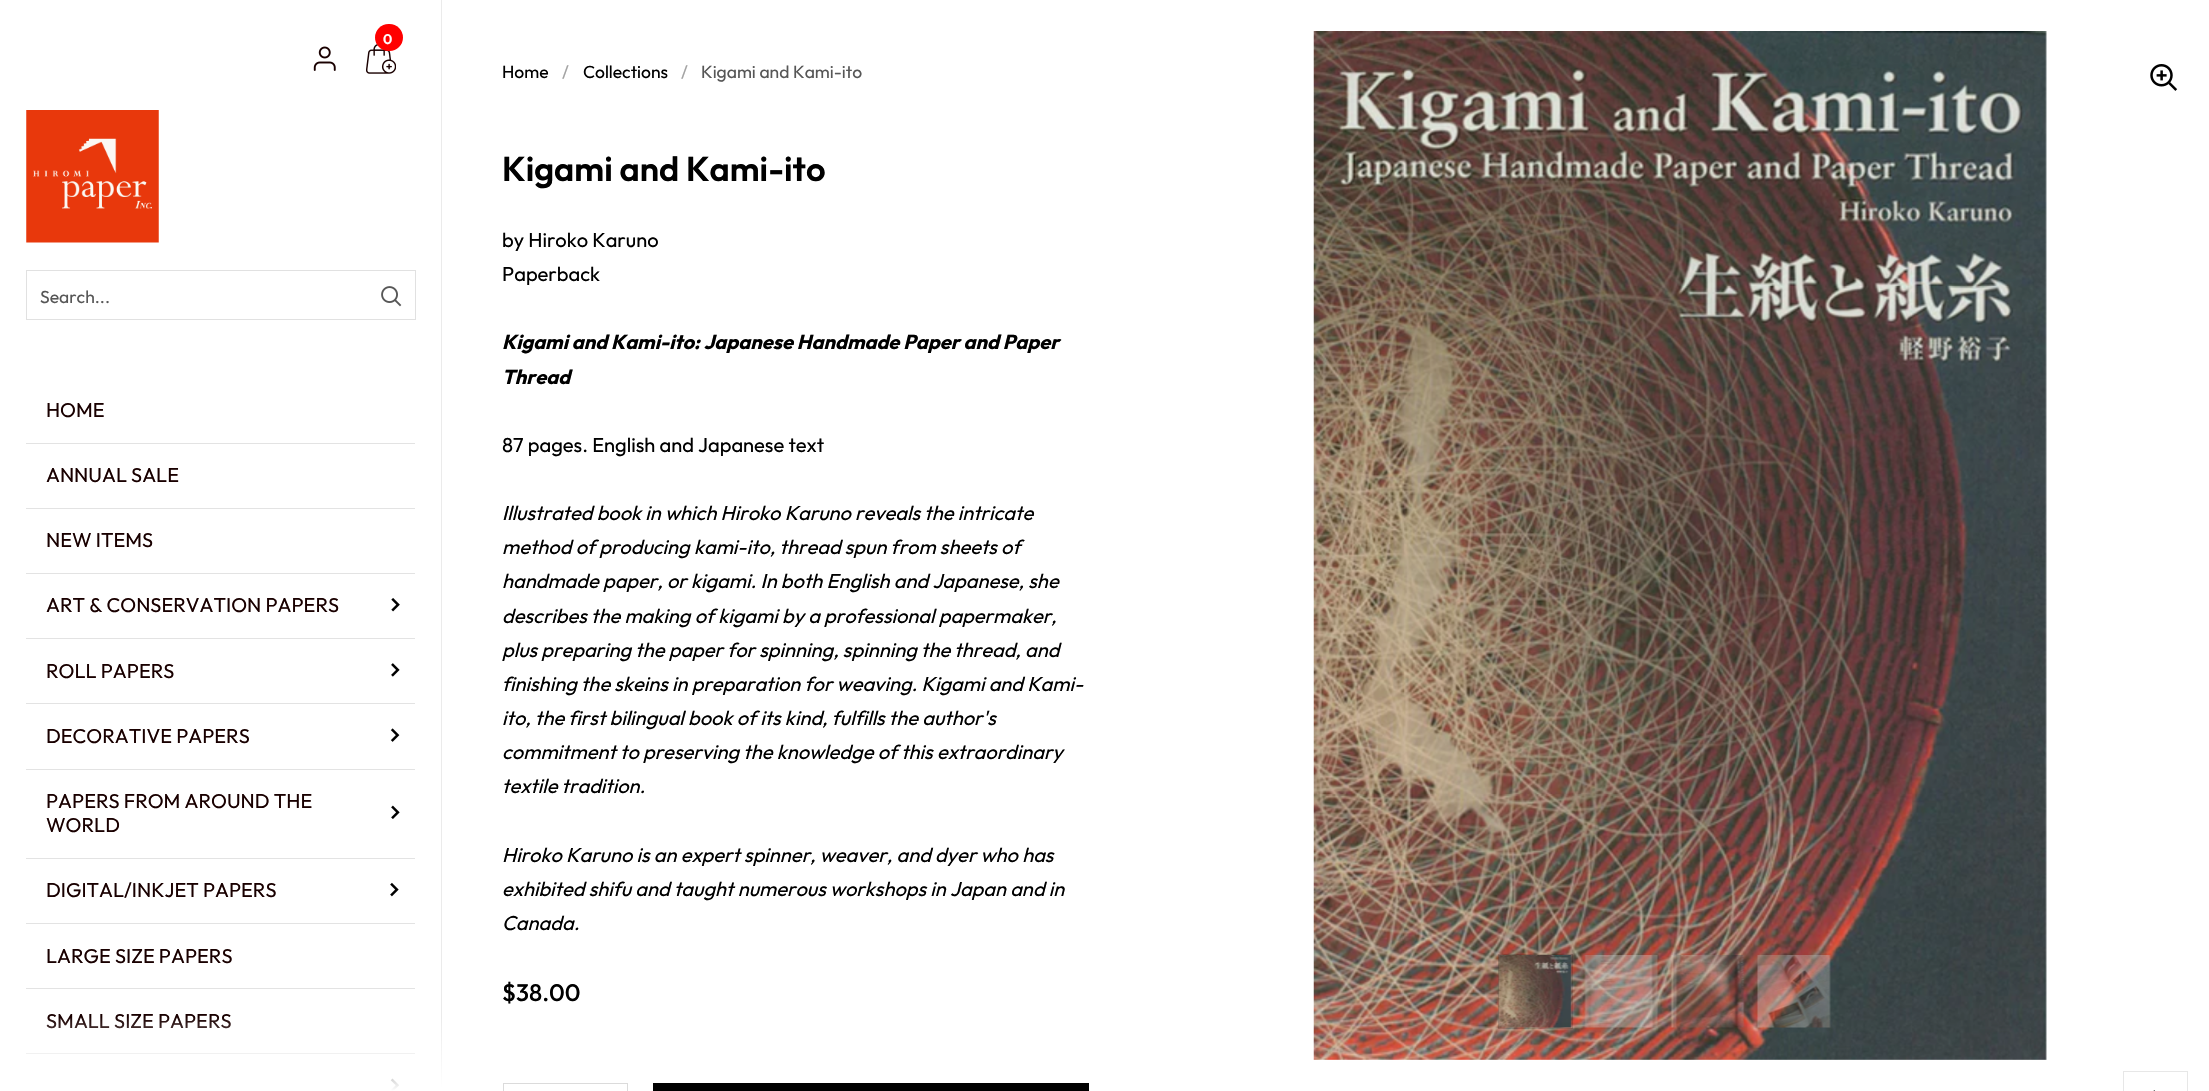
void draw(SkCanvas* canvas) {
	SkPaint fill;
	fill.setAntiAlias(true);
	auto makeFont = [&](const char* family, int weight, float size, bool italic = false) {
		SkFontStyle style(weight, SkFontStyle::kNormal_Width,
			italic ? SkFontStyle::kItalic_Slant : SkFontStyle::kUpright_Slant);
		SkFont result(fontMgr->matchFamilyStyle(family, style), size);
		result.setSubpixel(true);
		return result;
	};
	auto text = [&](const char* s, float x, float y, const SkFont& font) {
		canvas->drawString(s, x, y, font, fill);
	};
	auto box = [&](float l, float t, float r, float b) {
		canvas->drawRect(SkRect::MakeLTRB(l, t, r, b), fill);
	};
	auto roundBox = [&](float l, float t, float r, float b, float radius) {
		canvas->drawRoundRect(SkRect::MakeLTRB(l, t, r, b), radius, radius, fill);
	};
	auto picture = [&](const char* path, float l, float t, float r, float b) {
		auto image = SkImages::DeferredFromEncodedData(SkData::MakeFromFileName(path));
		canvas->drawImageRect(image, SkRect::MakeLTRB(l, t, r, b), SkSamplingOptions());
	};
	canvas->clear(0xFFFFFFFF);
	fill.setColor(0xFFEBEBEB);
	box(441, 0, 442, 1091);
	picture("image0.png", 366, 44, 396, 74);
	fill.setColor(0xFFFF0000);
	roundBox(375, 24, 403, 51, 13.5f);
	picture("image1.png", 313, 46, 336, 71);
	picture("image2.png", 26, 110, 159, 243);
	fill.setStyle(SkPaint::kStroke_Style);
	fill.setStrokeWidth(1);
	fill.setColor(0xFFE1E1E1);
	canvas->drawRect(SkRect::MakeLTRB(26.5f, 270.5f, 415.5f, 319.5f), fill);
	picture("image3.png", 381, 286, 402, 307);
	fill.setStyle(SkPaint::kFill_Style);
	fill.setColor(0xFFE3E3E3);
	box(26, 443, 415, 444);
	box(26, 508, 415, 509);
	box(26, 573, 415, 574);
	box(26, 638, 415, 639);
	picture("image4.png", 391, 598, 400, 612);
	box(26, 703, 415, 704);
	picture("image5.png", 391, 663, 400, 677);
	box(26, 769, 415, 770);
	picture("image6.png", 390, 728, 400, 742);
	box(26, 858, 415, 859);
	picture("image7.png", 391, 805, 400, 819);
	box(26, 923, 415, 924);
	picture("image8.png", 390, 882, 399, 897);
	box(26, 988, 415, 989);
	box(26, 1053, 415, 1054);
	picture("image9.png", 390, 1078, 400, 1091);
	fill.setStyle(SkPaint::kStroke_Style);
	fill.setColor(0xFFDBDBDB);
	canvas->drawRect(SkRect::MakeLTRB(503.5f, 1083.5f, 627.5f, 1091.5f), fill);
	fill.setStyle(SkPaint::kFill_Style);
	fill.setColor(0xFF000000);
	box(653, 1083, 1089, 1091);
	picture("image10.png", 1313, 31, 2047, 1060);
	picture("image11.png", 2150, 64, 2178, 91);
	fill.setStyle(SkPaint::kStroke_Style);
	fill.setColor(0x29000000);
	canvas->drawRect(SkRect::MakeLTRB(1498.5f, 954.5f, 1572.5f, 1028.5f), fill);
	fill.setStyle(SkPaint::kFill_Style);
	fill.setColor(0x08000000);
	box(1499, 955, 1571, 1028);
	picture("image12.png", 1498, 955, 1572, 1028);
	picture("image13.png", 1584, 955, 1658, 1028);
	picture("image14.png", 1670, 955, 1745, 1028);
	picture("image15.png", 1757, 955, 1831, 1028);
	fill.setStyle(SkPaint::kStroke_Style);
	fill.setColor(0xFFE7E7E7);
	canvas->drawRect(SkRect::MakeLTRB(2123.5f, 1071.5f, 2187.5f, 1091.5f), fill);
	picture("image16.png", 2153, 1090, 2155, 1091);
	auto font1 = makeFont("Outfit", 600, 14);
	fill.setStyle(SkPaint::kFill_Style);
	fill.setColor(0xFFFFFFFF);
	text("0", 383, 44, font1);
	auto font2 = makeFont("Outfit", 400, 17.5f);
	fill.setColor(0xFF575757);
	text("Search...", 40, 303, font2);
	auto font3 = makeFont("Outfit", 400, 20);
	fill.setColor(0xFF190000);
	text("HOME", 46, 417, font3);
	text("ANNUAL SALE", 46, 482, font3);
	text("NEW ITEMS", 46, 547, font3);
	text("ART & CONSERVATION PAPERS", 46, 612, font3);
	text("ROLL PAPERS", 46, 678, font3);
	text("DECORATIVE PAPERS", 46, 743, font3);
	text("PAPERS FROM AROUND THE", 46, 808, font3);
	text("WORLD", 46, 832, font3);
	text("DIGITAL/INKJET PAPERS", 46, 897, font3);
	text("LARGE SIZE PAPERS", 46, 963, font3);
	text("SMALL SIZE PAPERS", 46, 1028, font3);
	{
		const SkColor colors[] = {0xFFFFFFFF, 0x00FFFFFF};
		const float stops[] = {0, 1};
		const SkPoint ends[] = {{221, 1091}, {221, 1016}};
		fill.setShader(SkGradientShader::MakeLinear(ends, colors, stops, 2, SkTileMode::kClamp));
		fill.setAlpha(255);
	}
	box(26, 1018, 442, 1091);
	fill.setShader(nullptr);
	fill.setColor(0xFF000000);
	text("Home", 502, 78, font2);
	fill.setColor(0xFFA3A3A3);
	text("/", 562, 78, font2);
	fill.setColor(0xFF000000);
	text("Collections", 583, 78, font2);
	fill.setColor(0xFFA3A3A3);
	text("/", 681, 78, font2);
	fill.setColor(0xFF575757);
	text("Kigami and Kami-ito", 701, 78, font2);
	auto font4 = makeFont("Outfit", 600, 34.4f);
	fill.setColor(0xFF000000);
	text("Kigami and Kami-ito", 502, 181, font4);
	auto font5 = makeFont("Outfit", 400, 20.1f);
	text("by Hiroko Karuno", 502, 247, font5);
	text("Paperback", 502, 281, font5);
	auto font6 = makeFont("Outfit", 700, 20.1f, true);
	text("Kigami and Kami-ito: Japanese Handmade Paper and Paper", 502, 349, font6);
	text("Thread", 502, 384, font6);
	text("87 pages. English and Japanese text", 502, 452, font5);
	auto font7 = makeFont("Outfit", 400, 20.1f, true);
	text("Illustrated book in which Hiroko Karuno reveals the intricate", 502, 520, font7);
	text("method of producing kami-ito, thread spun from sheets of", 502, 554, font7);
	text("handmade paper, or kigami. In both English and Japanese, she", 502, 588, font7);
	text("describes the making of kigami by a professional papermaker,", 502, 623, font7);
	text("plus preparing the paper for spinning, spinning the thread, and", 502, 657, font7);
	text("finishing the skeins in preparation for weaving. Kigami and Kami-", 502, 691, font7);
	text("ito, the first bilingual book of its kind, fulfills the author's", 502, 725, font7);
	text("commitment to preserving the knowledge of this extraordinary", 502, 759, font7);
	text("textile tradition.", 502, 793, font7);
	text("Hiroko Karuno is an expert spinner, weaver, and dyer who has", 502, 862, font7);
	text("exhibited shifu and taught numerous workshops in Japan and in", 502, 896, font7);
	text("Canada.", 502, 930, font7);
	auto font8 = makeFont("Outfit", 500, 24);
	text("$38.00", 502, 1001, font8);
}
